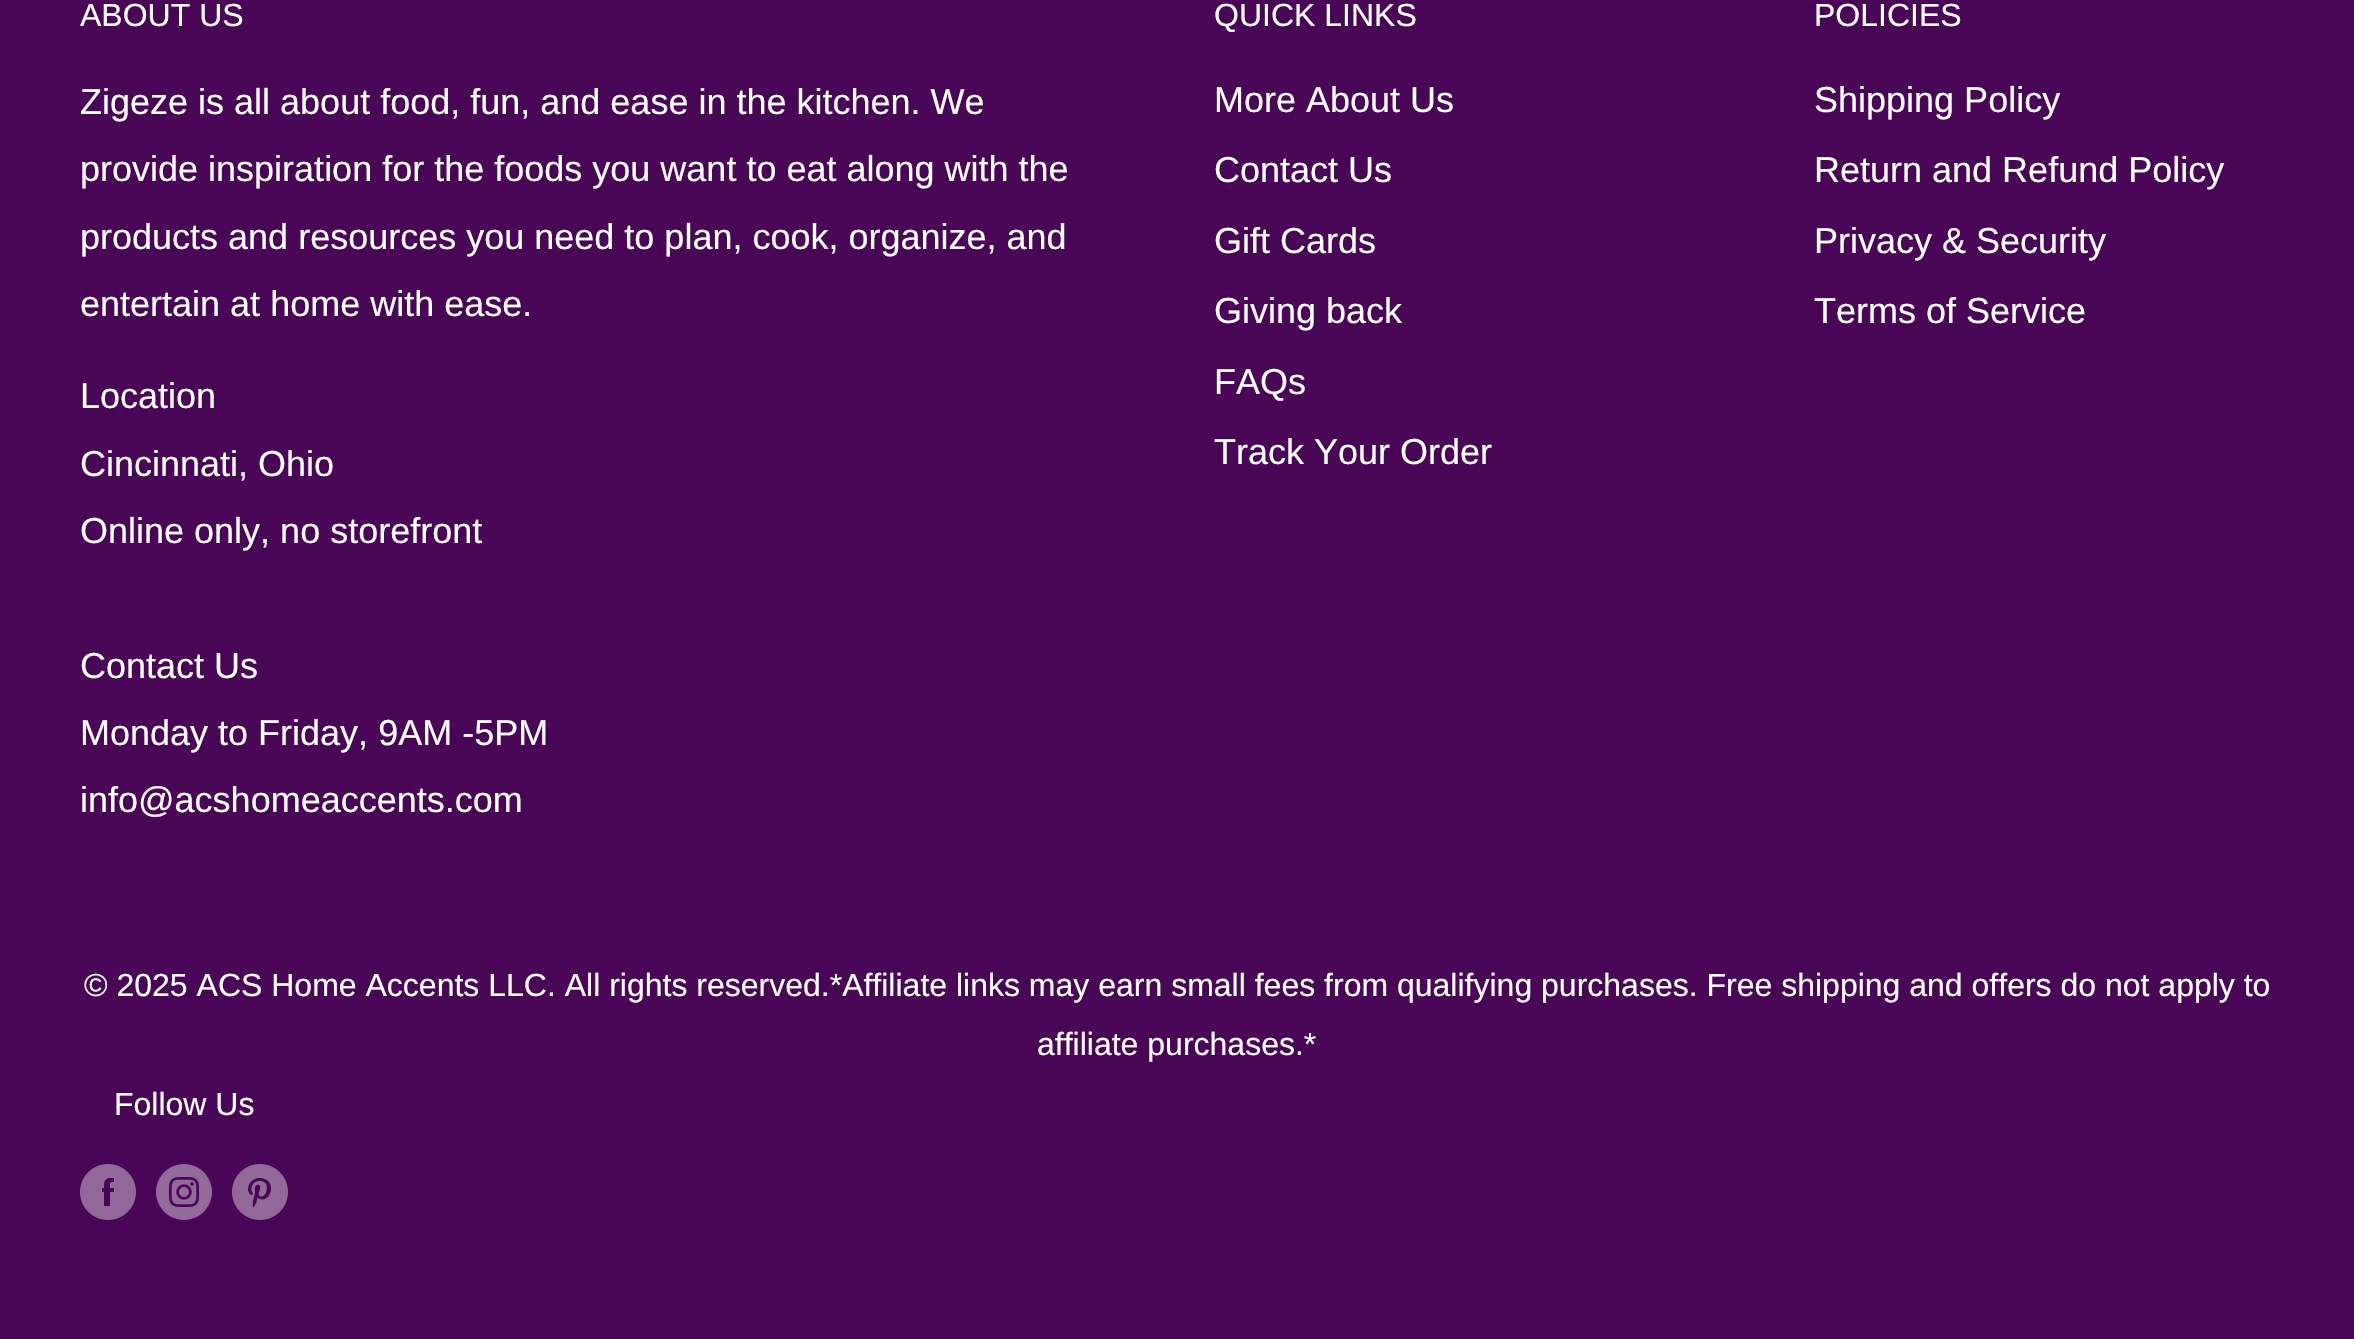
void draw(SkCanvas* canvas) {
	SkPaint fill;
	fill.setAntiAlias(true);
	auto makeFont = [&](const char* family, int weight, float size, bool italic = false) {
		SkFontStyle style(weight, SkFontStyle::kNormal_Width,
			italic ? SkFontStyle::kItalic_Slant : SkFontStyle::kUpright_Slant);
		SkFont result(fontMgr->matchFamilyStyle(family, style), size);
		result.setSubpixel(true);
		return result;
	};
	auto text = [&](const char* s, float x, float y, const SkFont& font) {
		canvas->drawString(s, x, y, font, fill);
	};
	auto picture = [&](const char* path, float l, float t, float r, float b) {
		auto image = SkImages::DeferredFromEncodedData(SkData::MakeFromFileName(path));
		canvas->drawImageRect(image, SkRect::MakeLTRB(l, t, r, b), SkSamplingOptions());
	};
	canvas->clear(0xFF490657);
	picture("image0.png", 80, 1164, 136, 1220);
	picture("image1.png", 156, 1164, 212, 1220);
	picture("image2.png", 232, 1164, 288, 1220);
	auto font1 = makeFont("Arimo", 400, 32);
	fill.setColor(0xFFFFFFFF);
	text("ABOUT US", 80, 26, font1);
	auto font2 = makeFont("Arimo", 400, 36);
	text("Zigeze is all about food, fun, and ease in the kitchen. We", 80, 114, font2);
	text("provide inspiration for the foods you want to eat along with the", 80, 181, font2);
	text("products and resources you need to plan, cook, organize, and", 80, 249, font2);
	text("entertain at home with ease.", 80, 316, font2);
	text("Location", 80, 408, font2);
	text("Cincinnati, Ohio", 80, 476, font2);
	text("Online only, no storefront", 80, 543, font2);
	text("Contact Us", 80, 678, font2);
	text("Monday to Friday, 9AM -5PM", 80, 745, font2);
	text("info@acshomeaccents.com", 80, 812, font2);
	text("QUICK LINKS", 1214, 26, font1);
	text("More About Us", 1214, 112, font2);
	text("Contact Us", 1214, 182, font2);
	text("Gift Cards", 1214, 253, font2);
	text("Giving back", 1214, 323, font2);
	text("FAQs", 1214, 394, font2);
	text("Track Your Order", 1214, 464, font2);
	text("POLICIES", 1814, 26, font1);
	text("Shipping Policy", 1814, 112, font2);
	text("Return and Refund Policy", 1814, 182, font2);
	text("Privacy & Security", 1814, 253, font2);
	text("Terms of Service", 1814, 323, font2);
	text("© 2025 ACS Home Accents LLC. All rights reserved.*Affiliate links may earn small fees from qualifying purchases. Free shipping and offers do not apply to", 84, 996, font1);
	text("affiliate purchases.*", 1037, 1055, font1);
	text("Follow Us", 114, 1115, font1);
}
